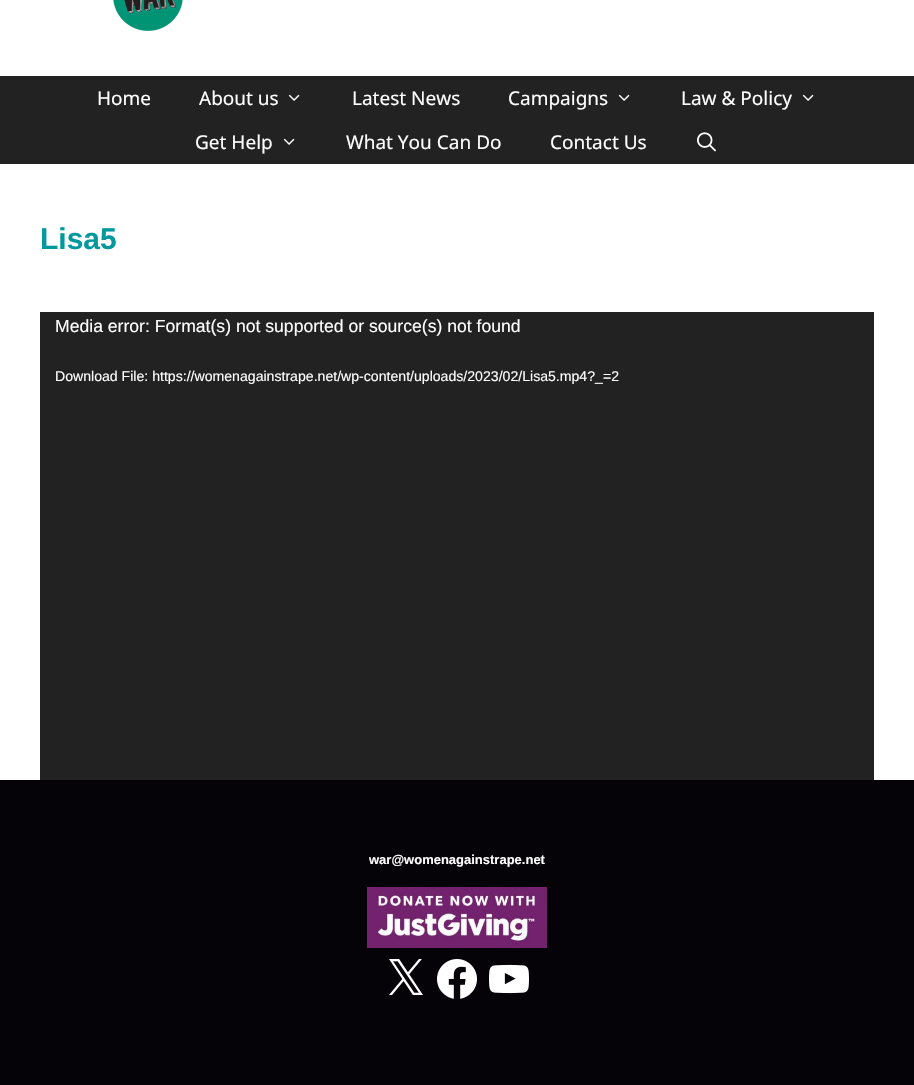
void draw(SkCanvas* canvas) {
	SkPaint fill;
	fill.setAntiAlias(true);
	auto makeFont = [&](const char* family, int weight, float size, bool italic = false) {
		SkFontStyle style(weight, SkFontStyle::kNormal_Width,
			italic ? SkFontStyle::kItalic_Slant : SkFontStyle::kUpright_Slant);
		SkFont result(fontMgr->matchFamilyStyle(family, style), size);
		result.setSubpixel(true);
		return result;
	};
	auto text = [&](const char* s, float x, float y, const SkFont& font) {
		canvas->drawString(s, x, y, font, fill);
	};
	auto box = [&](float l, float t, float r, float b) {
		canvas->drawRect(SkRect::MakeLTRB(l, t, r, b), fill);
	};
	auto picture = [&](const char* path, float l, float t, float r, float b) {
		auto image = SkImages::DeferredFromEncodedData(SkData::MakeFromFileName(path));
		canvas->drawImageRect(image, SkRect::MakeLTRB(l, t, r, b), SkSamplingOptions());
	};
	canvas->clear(0xFFFFFFFF);
	picture("image0.png", 113, 0, 183, 31);
	fill.setColor(0xFF222222);
	box(0, 76, 914, 164);
	picture("image1.png", 288, 94, 300, 101);
	picture("image1.png", 618, 94, 630, 101);
	picture("image1.png", 802, 94, 814, 101);
	picture("image1.png", 283, 138, 295, 145);
	picture("image2.png", 697, 132, 716, 152);
	box(40, 312, 874, 780);
	fill.setColor(0xFF050308);
	box(0, 780, 914, 1085);
	picture("image3.png", 367, 887, 547, 948);
	picture("image4.png", 389, 959, 423, 995);
	picture("image5.png", 437, 959, 477, 999);
	picture("image6.png", 489, 964, 529, 994);
	auto font1 = makeFont("Noto Sans", 400, 19);
	fill.setColor(0xFFFFFFFF);
	text("Home", 97, 105, font1);
	text("About us", 199, 105, font1);
	text("Latest News", 352, 105, font1);
	text("Campaigns", 508, 105, font1);
	text("Law & Policy", 681, 105, font1);
	text("Get Help", 195, 149, font1);
	text("What You Can Do", 346, 149, font1);
	text("Contact Us", 550, 149, font1);
	auto font2 = makeFont("Liberation Sans", 700, 30);
	fill.setColor(0xFF03989E);
	text("Lisa5", 40, 249, font2);
	auto font3 = makeFont("Liberation Sans", 400, 17.6f);
	fill.setColor(0xFFFFFFFF);
	text("Media error: Format(s) not supported or source(s) not found", 55, 332, font3);
	auto font4 = makeFont("Liberation Sans", 400, 14.1f);
	text("Download File: https://womenagainstrape.net/wp-content/uploads/2023/02/Lisa5.mp4?_=2", 55, 381, font4);
	auto font5 = makeFont("Liberation Sans", 700, 13);
	text("war@womenagainstrape.net", 369, 864, font5);
}
